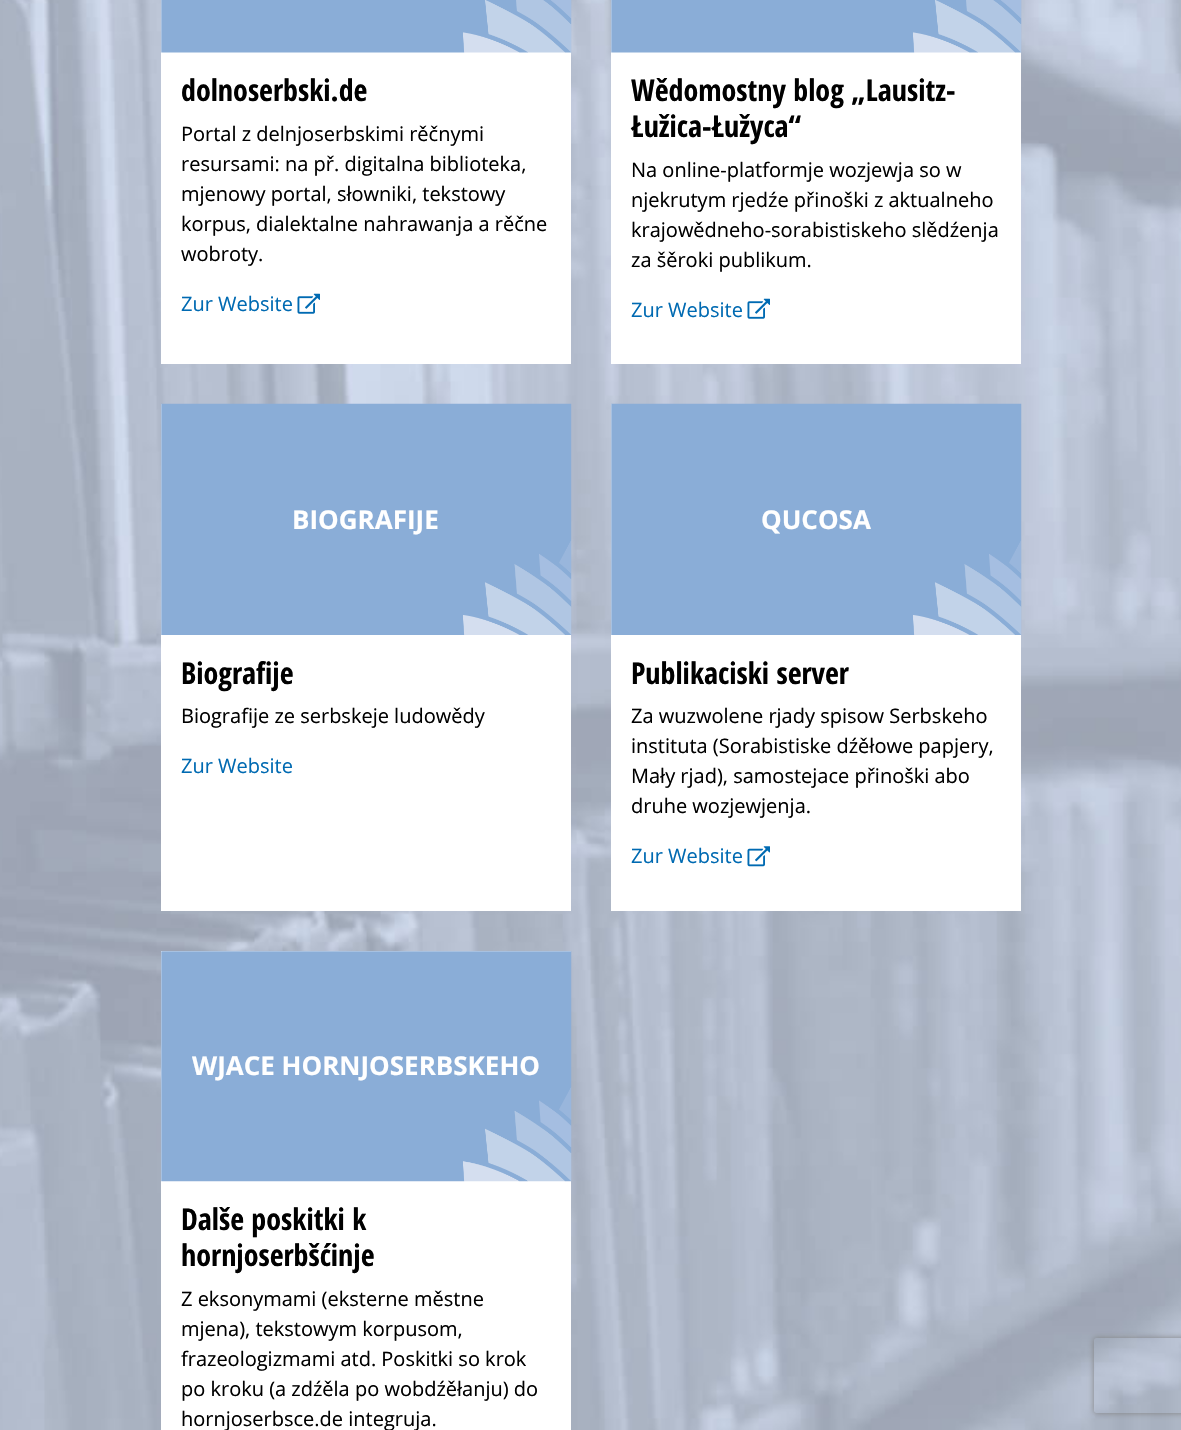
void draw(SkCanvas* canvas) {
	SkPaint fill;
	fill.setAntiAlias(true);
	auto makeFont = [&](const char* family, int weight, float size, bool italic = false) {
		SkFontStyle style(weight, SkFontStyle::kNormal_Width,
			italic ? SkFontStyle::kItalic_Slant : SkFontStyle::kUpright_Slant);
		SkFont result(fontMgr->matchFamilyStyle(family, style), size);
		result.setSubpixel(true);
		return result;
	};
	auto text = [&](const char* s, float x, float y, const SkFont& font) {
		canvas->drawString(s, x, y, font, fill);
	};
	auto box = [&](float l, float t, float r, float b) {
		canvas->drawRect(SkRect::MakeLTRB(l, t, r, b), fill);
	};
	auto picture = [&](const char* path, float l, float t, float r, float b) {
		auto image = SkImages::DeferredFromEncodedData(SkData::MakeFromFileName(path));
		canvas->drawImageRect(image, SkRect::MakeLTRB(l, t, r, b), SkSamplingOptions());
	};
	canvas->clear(0xFFFFFFFF);
	picture("image0.png", 0, 0, 1181, 1430);
	fill.setColor(0xFFFFFFFF);
	box(161, 0, 571, 364);
	picture("image1.png", 161, 0, 572, 53);
	picture("image2.png", 297, 293, 320, 314);
	box(611, 0, 1021, 364);
	picture("image3.png", 611, 0, 1022, 53);
	picture("image2.png", 747, 298, 770, 319);
	box(161, 404, 571, 911);
	picture("image4.png", 161, 403, 572, 635);
	box(611, 404, 1021, 911);
	picture("image5.png", 611, 403, 1022, 635);
	picture("image6.png", 747, 846, 770, 867);
	box(161, 951, 571, 1430);
	picture("image7.png", 161, 951, 572, 1182);
	canvas->save();
	canvas->clipPath(SkPathBuilder(SkPathFillType::kEvenOdd).moveTo(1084, 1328).lineTo(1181, 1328).lineTo(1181, 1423).lineTo(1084, 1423).close().moveTo(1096.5f, 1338).lineTo(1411.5f, 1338).cubicTo(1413, 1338, 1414, 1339, 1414, 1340.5f).lineTo(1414, 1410.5f).cubicTo(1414, 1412, 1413, 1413, 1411.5f, 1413).lineTo(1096.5f, 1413).cubicTo(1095, 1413, 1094, 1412, 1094, 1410.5f).lineTo(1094, 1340.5f).cubicTo(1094, 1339, 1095, 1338, 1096.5f, 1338).close().detach(), true);
	fill.setColor(0xFF808080);
	fill.setMaskFilter(SkMaskFilter::MakeBlur(kNormal_SkBlurStyle, 3));
	canvas->drawRoundRect(SkRect::MakeLTRB(1094, 1338, 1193, 1413), 2.5f, 2.5f, fill);
	fill.setMaskFilter(nullptr);
	canvas->restore();
	auto font1 = makeFont("Open Sans Condensed", 700, 30);
	fill.setColor(0xFF000000);
	text("dolnoserbski.de", 181, 101, font1);
	auto font2 = makeFont("Open Sans", 400, 20);
	text("Portal z delnjoserbskimi rěčnymi", 181, 141, font2);
	text("resursami: na př. digitalna biblioteka,", 181, 171, font2);
	text("mjenowy portal, słowniki, tekstowy", 181, 201, font2);
	text("korpus, dialektalne nahrawanja a rěčne", 181, 231, font2);
	text("wobroty.", 181, 261, font2);
	fill.setColor(0xFF006AB2);
	text("Zur Website", 181, 311, font2);
	fill.setColor(0xFF000000);
	text("Wědomostny blog „Lausitz-", 631, 101, font1);
	text("Łužica-Łužyca“", 631, 137, font1);
	text("Na online-platformje wozjewja so w", 631, 177, font2);
	text("njekrutym rjedźe přinoški z aktualneho", 631, 207, font2);
	text("krajowědneho-sorabistiskeho slědźenja", 631, 237, font2);
	text("za šěroki publikum.", 631, 267, font2);
	fill.setColor(0xFF006AB2);
	text("Zur Website", 631, 317, font2);
	auto font3 = makeFont("Open Sans", 700, 26);
	fill.setColor(0xFFFFFFFF);
	text("BIOGRAFIJE", 292, 529, font3);
	fill.setColor(0xFF000000);
	text("Biografije", 181, 684, font1);
	text("Biografije ze serbskeje ludowědy", 181, 723, font2);
	fill.setColor(0xFF006AB2);
	text("Zur Website", 181, 773, font2);
	fill.setColor(0xFFFFFFFF);
	text("QUCOSA", 761, 529, font3);
	fill.setColor(0xFF000000);
	text("Publikaciski server", 631, 684, font1);
	text("Za wuzwolene rjady spisow Serbskeho", 631, 723, font2);
	text("instituta (Sorabistiske dźěłowe papjery,", 631, 753, font2);
	text("Mały rjad), samostejace přinoški abo", 631, 783, font2);
	text("druhe wozjewjenja.", 631, 813, font2);
	fill.setColor(0xFF006AB2);
	text("Zur Website", 631, 863, font2);
	fill.setColor(0xFFFFFFFF);
	text("WJACE HORNJOSERBSKEHO", 192, 1075, font3);
	fill.setColor(0xFF000000);
	text("Dalše poskitki k", 181, 1230, font1);
	text("hornjoserbšćinje", 181, 1266, font1);
	text("Z eksonymami (eksterne městne", 181, 1306, font2);
	text("mjena), tekstowym korpusom,", 181, 1336, font2);
	text("frazeologizmami atd. Poskitki so krok", 181, 1366, font2);
	text("po kroku (a zdźěla po wobdźěłanju) do", 181, 1396, font2);
	text("hornjoserbsce.de integruja.", 181, 1426, font2);
}
